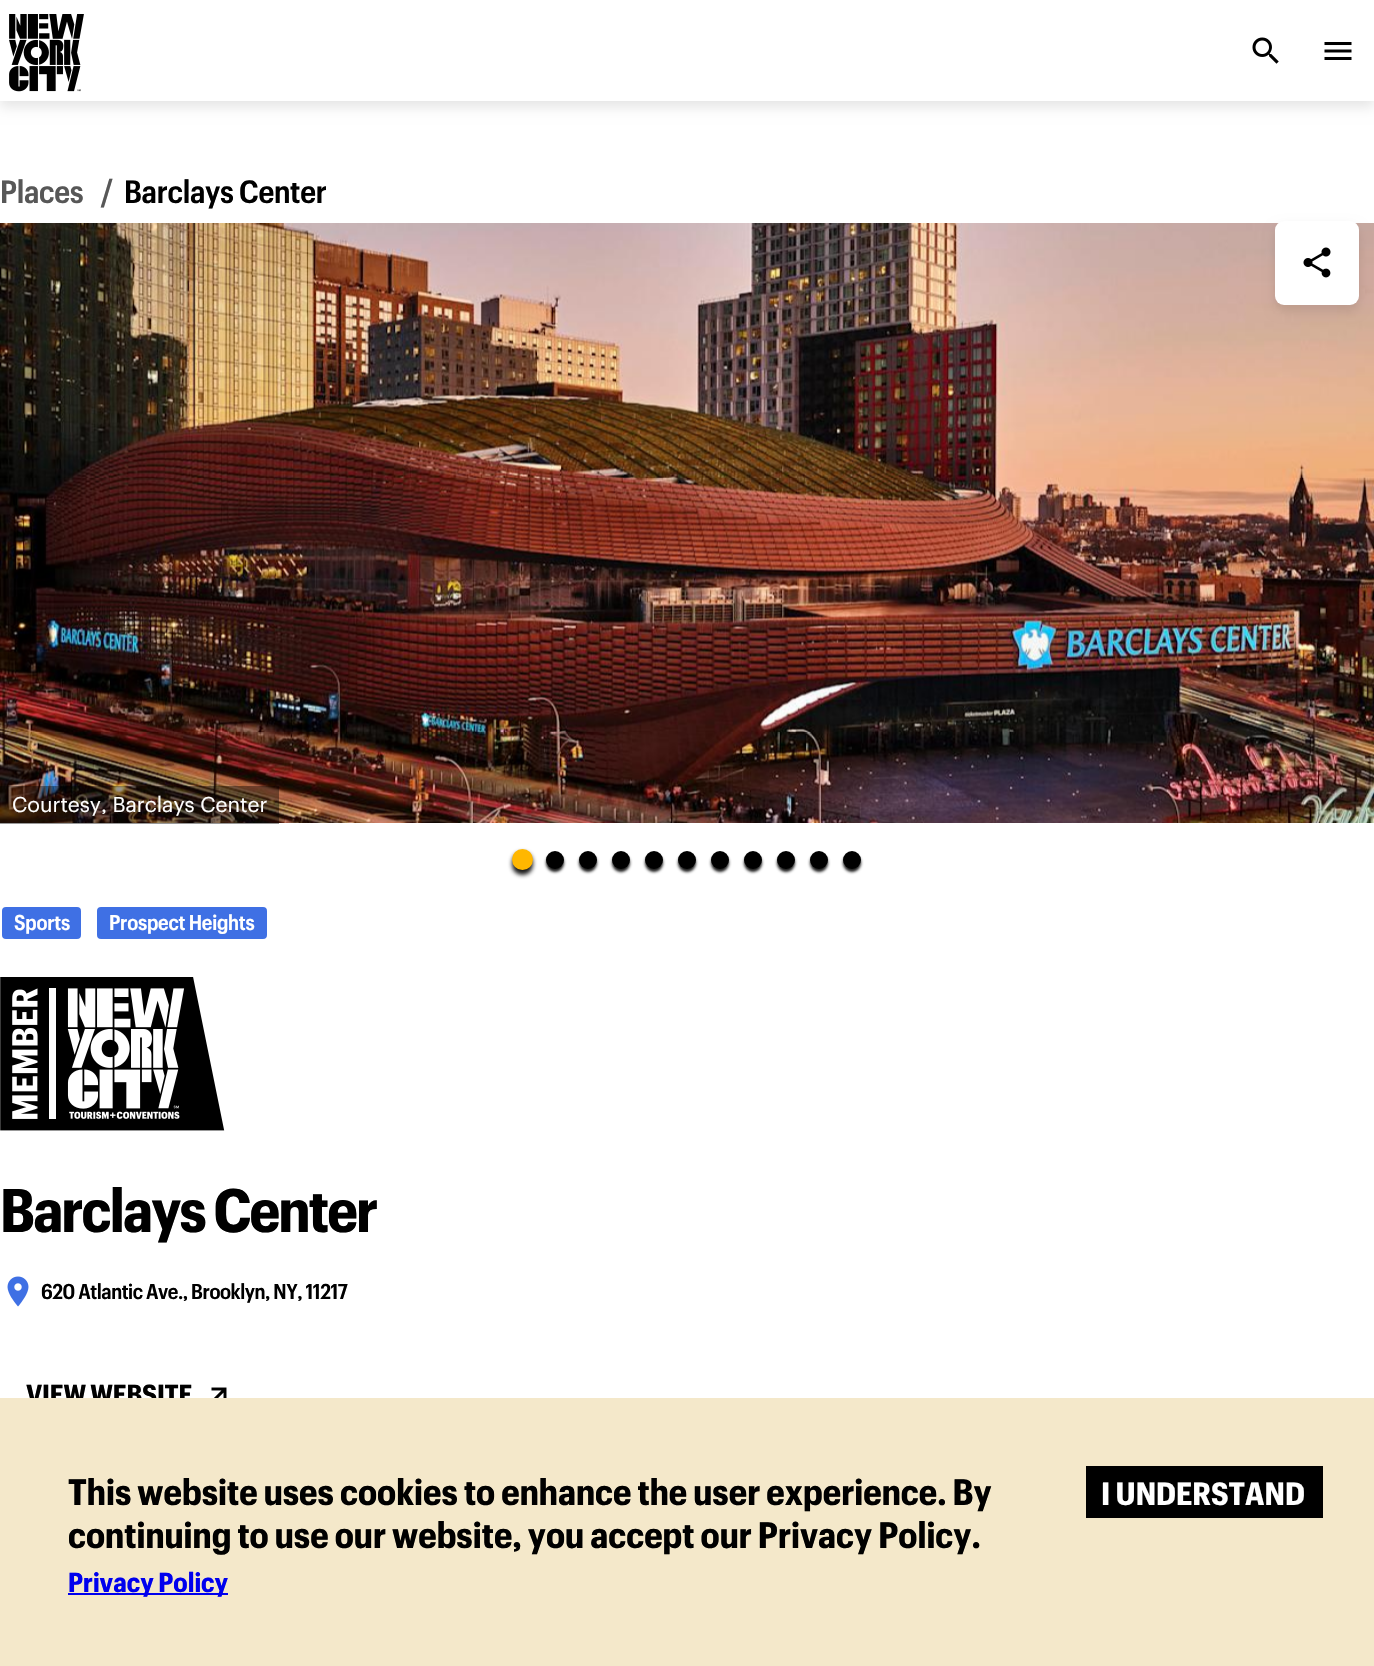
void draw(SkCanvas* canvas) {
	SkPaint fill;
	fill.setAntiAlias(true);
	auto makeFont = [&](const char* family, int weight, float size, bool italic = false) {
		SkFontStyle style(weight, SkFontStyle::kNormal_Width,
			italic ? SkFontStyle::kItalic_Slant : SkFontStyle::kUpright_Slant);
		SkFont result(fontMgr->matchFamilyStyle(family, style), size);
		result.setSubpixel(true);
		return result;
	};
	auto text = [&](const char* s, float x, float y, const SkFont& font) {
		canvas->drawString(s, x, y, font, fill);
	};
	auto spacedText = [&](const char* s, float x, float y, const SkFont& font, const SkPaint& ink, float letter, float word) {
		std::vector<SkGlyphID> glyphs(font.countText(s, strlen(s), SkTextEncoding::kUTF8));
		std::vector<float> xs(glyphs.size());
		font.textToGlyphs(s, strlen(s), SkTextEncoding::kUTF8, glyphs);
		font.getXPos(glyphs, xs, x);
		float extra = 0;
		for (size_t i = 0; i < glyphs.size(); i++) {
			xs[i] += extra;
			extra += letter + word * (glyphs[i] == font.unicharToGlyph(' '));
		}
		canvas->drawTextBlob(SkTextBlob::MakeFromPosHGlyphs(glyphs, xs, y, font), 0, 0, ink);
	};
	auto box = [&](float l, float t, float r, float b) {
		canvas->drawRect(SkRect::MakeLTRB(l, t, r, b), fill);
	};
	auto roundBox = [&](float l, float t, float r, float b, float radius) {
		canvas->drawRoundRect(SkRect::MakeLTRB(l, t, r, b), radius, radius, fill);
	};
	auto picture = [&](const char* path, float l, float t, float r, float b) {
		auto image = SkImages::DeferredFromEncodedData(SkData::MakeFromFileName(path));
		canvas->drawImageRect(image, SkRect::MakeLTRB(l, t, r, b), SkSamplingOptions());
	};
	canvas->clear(0xFFFFFFFF);
	canvas->save();
	canvas->clipPath(SkPathBuilder(SkPathFillType::kEvenOdd).moveTo(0, 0).lineTo(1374, 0).lineTo(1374, 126).lineTo(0, 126).close().moveTo(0, 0).lineTo(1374, 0).lineTo(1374, 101).lineTo(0, 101).close().detach(), true);
	fill.setColor(0x1A000000);
	fill.setMaskFilter(SkMaskFilter::MakeBlur(kNormal_SkBlurStyle, 6));
	canvas->drawRect(SkRect::MakeLTRB(0, 6, 1374, 107), fill);
	fill.setMaskFilter(nullptr);
	canvas->restore();
	picture("image0.png", 9, 14, 84, 92);
	picture("image1.png", 1252, 37, 1279, 64);
	picture("image2.png", 1324, 42, 1352, 60);
	picture("image3.png", 0, 223, 1374, 823);
	fill.setColor(0xFF1A1A1A);
	fill.setMaskFilter(SkMaskFilter::MakeBlur(kNormal_SkBlurStyle, 2));
	canvas->drawRoundRect(SkRect::MakeLTRB(512, 852, 533, 875), 10.5f, 10.5f, fill);
	fill.setMaskFilter(nullptr);
	fill.setColor(0xFFFFB700);
	canvas->drawCircle(522.5f, 859.5f, 10.5f, fill);
	fill.setColor(0xFF1A1A1A);
	fill.setMaskFilter(SkMaskFilter::MakeBlur(kNormal_SkBlurStyle, 1.5f));
	canvas->drawRoundRect(SkRect::MakeLTRB(546, 854, 564, 872), 9, 9, fill);
	fill.setMaskFilter(nullptr);
	fill.setColor(0xFF000000);
	canvas->drawCircle(555, 860, 9, fill);
	fill.setColor(0xFF1A1A1A);
	fill.setMaskFilter(SkMaskFilter::MakeBlur(kNormal_SkBlurStyle, 1.5f));
	canvas->drawRoundRect(SkRect::MakeLTRB(579, 854, 597, 872), 9, 9, fill);
	fill.setMaskFilter(nullptr);
	fill.setColor(0xFF000000);
	canvas->drawCircle(588, 860, 9, fill);
	fill.setColor(0xFF1A1A1A);
	fill.setMaskFilter(SkMaskFilter::MakeBlur(kNormal_SkBlurStyle, 1.5f));
	canvas->drawRoundRect(SkRect::MakeLTRB(612, 854, 630, 872), 9, 9, fill);
	fill.setMaskFilter(nullptr);
	fill.setColor(0xFF000000);
	canvas->drawCircle(621, 860, 9, fill);
	fill.setColor(0xFF1A1A1A);
	fill.setMaskFilter(SkMaskFilter::MakeBlur(kNormal_SkBlurStyle, 1.5f));
	canvas->drawRoundRect(SkRect::MakeLTRB(645, 854, 663, 872), 9, 9, fill);
	fill.setMaskFilter(nullptr);
	fill.setColor(0xFF000000);
	canvas->drawCircle(654, 860, 9, fill);
	fill.setColor(0xFF1A1A1A);
	fill.setMaskFilter(SkMaskFilter::MakeBlur(kNormal_SkBlurStyle, 1.5f));
	canvas->drawRoundRect(SkRect::MakeLTRB(678, 854, 696, 872), 9, 9, fill);
	fill.setMaskFilter(nullptr);
	fill.setColor(0xFF000000);
	canvas->drawCircle(687, 860, 9, fill);
	fill.setColor(0xFF1A1A1A);
	fill.setMaskFilter(SkMaskFilter::MakeBlur(kNormal_SkBlurStyle, 1.5f));
	canvas->drawRoundRect(SkRect::MakeLTRB(711, 854, 729, 872), 9, 9, fill);
	fill.setMaskFilter(nullptr);
	fill.setColor(0xFF000000);
	canvas->drawCircle(720, 860, 9, fill);
	fill.setColor(0xFF1A1A1A);
	fill.setMaskFilter(SkMaskFilter::MakeBlur(kNormal_SkBlurStyle, 1.5f));
	canvas->drawRoundRect(SkRect::MakeLTRB(744, 854, 762, 872), 9, 9, fill);
	fill.setMaskFilter(nullptr);
	fill.setColor(0xFF000000);
	canvas->drawCircle(753, 860, 9, fill);
	fill.setColor(0xFF1A1A1A);
	fill.setMaskFilter(SkMaskFilter::MakeBlur(kNormal_SkBlurStyle, 1.5f));
	canvas->drawRoundRect(SkRect::MakeLTRB(777, 854, 795, 872), 9, 9, fill);
	fill.setMaskFilter(nullptr);
	fill.setColor(0xFF000000);
	canvas->drawCircle(786, 860, 9, fill);
	fill.setColor(0xFF1A1A1A);
	fill.setMaskFilter(SkMaskFilter::MakeBlur(kNormal_SkBlurStyle, 1.5f));
	canvas->drawRoundRect(SkRect::MakeLTRB(810, 854, 828, 872), 9, 9, fill);
	fill.setMaskFilter(nullptr);
	fill.setColor(0xFF000000);
	canvas->drawCircle(819, 860, 9, fill);
	fill.setColor(0xFF1A1A1A);
	fill.setMaskFilter(SkMaskFilter::MakeBlur(kNormal_SkBlurStyle, 1.5f));
	canvas->drawRoundRect(SkRect::MakeLTRB(843, 854, 861, 872), 9, 9, fill);
	fill.setMaskFilter(nullptr);
	fill.setColor(0xFF000000);
	canvas->drawCircle(852, 860, 9, fill);
	fill.setColor(0x66000000);
	box(0, 786, 279, 824);
	fill.setColor(0x1A000000);
	fill.setMaskFilter(SkMaskFilter::MakeBlur(kNormal_SkBlurStyle, 6));
	canvas->drawRoundRect(SkRect::MakeLTRB(1275, 227, 1359, 311), 9, 9, fill);
	fill.setMaskFilter(nullptr);
	fill.setColor(0xFFFFFFFF);
	roundBox(1275, 221, 1359, 305, 9);
	picture("image4.png", 1303, 247, 1331, 278);
	picture("image5.png", 0, 977, 225, 1131);
	fill.setColor(0xFF3F70E4);
	canvas->drawRoundRect(SkRect::MakeLTRB(1, 906, 82, 940), 5, 5, fill);
	fill.setStyle(SkPaint::kStroke_Style);
	fill.setStrokeWidth(2);
	fill.setColor(0xFFFFFFFF);
	canvas->drawRoundRect(SkRect::MakeLTRB(1, 906, 82, 940), 5, 5, fill);
	fill.setStyle(SkPaint::kFill_Style);
	fill.setColor(0xFF3F70E4);
	canvas->drawRoundRect(SkRect::MakeLTRB(96, 906, 268, 940), 5, 5, fill);
	fill.setStyle(SkPaint::kStroke_Style);
	fill.setColor(0xFFFFFFFF);
	canvas->drawRoundRect(SkRect::MakeLTRB(96, 906, 268, 940), 5, 5, fill);
	picture("image6.png", 7, 1276, 29, 1307);
	picture("image7.png", 211, 1387, 227, 1398);
	auto font1 = makeFont("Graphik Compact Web", 600, 31.5f);
	fill.setStyle(SkPaint::kFill_Style);
	fill.setColor(0xFF575757);
	spacedText("Places", 0, 203, font1, fill, -0.3f, 0);
	spacedText("/", 101, 203, font1, fill, -0.3f, 0);
	fill.setColor(0xFF000000);
	spacedText("Barclays Center", 124, 203, font1, fill, -0.3f, 0);
	auto font2 = makeFont("Graphik", 400, 21);
	fill.setColor(0xFFFFFFFF);
	text("Courtesy, Barclays Center", 12, 812, font2);
	auto font3 = makeFont("Graphik Compact Web", 600, 21);
	spacedText("Sports", 14, 930, font3, fill, -0.25f, 0);
	spacedText("Prospect Heights", 109, 930, font3, fill, -0.25f, 0);
	auto font4 = makeFont("Graphik Compact Web", 700, 60);
	fill.setColor(0xFF000000);
	spacedText("Barclays Center", 0, 1232, font4, fill, -1.75f, 0);
	spacedText("620 Atlantic Ave., Brooklyn, NY, 11217", 41, 1299, font3, fill, -0.45f, 0);
	auto font5 = makeFont("Graphik Compact Web", 700, 27);
	spacedText("VIEW WEBSITE", 26, 1404, font5, fill, -0.2f, 0);
	fill.setColor(0xFFF4E8CA);
	box(0, 1398, 1374, 1666);
	auto font6 = makeFont("Graphik Compact Web", 700, 36);
	fill.setColor(0xFF000000);
	text("This website uses cookies to enhance the user experience. By", 68, 1505, font6);
	text("continuing to use our website, you accept our Privacy Policy.", 68, 1548, font6);
	fill.setColor(0xFF0000EE);
	box(68, 1593, 228, 1595);
	text("Privacy Policy", 68, 1592, font5);
	fill.setColor(0xFF000000);
	box(1086, 1466, 1323, 1518);
	auto font7 = makeFont("Graphik Compact Web", 700, 31.5f);
	fill.setColor(0xFFFFFFFF);
	text("I UNDERSTAND", 1101, 1505, font7);
}
